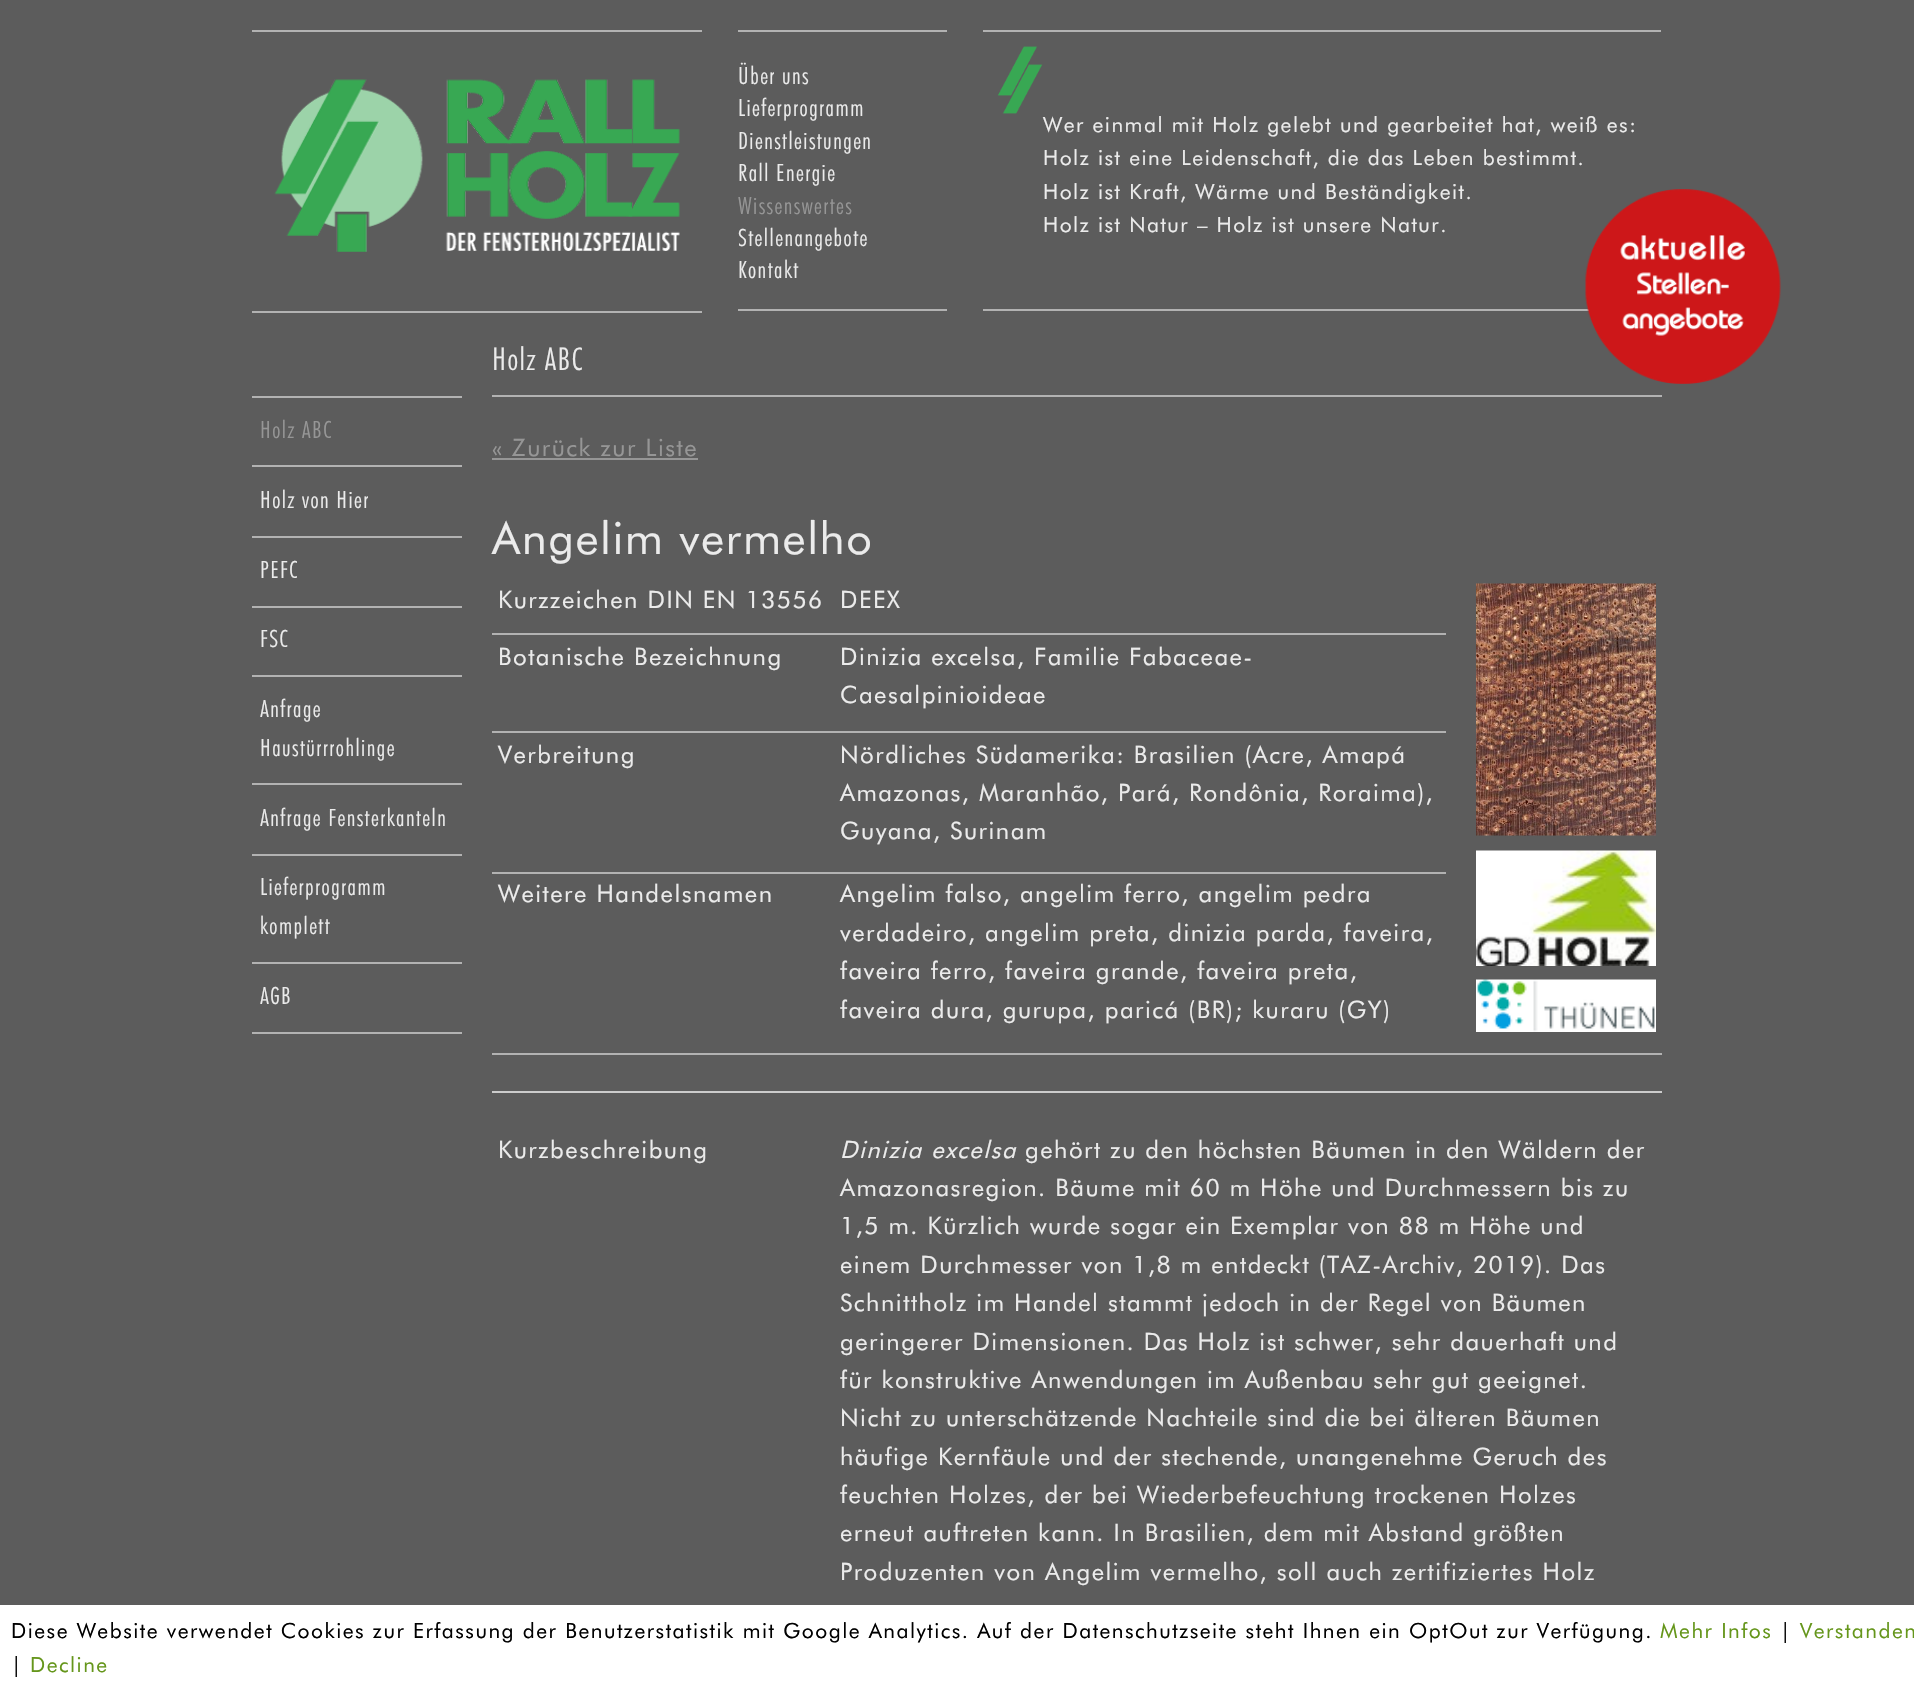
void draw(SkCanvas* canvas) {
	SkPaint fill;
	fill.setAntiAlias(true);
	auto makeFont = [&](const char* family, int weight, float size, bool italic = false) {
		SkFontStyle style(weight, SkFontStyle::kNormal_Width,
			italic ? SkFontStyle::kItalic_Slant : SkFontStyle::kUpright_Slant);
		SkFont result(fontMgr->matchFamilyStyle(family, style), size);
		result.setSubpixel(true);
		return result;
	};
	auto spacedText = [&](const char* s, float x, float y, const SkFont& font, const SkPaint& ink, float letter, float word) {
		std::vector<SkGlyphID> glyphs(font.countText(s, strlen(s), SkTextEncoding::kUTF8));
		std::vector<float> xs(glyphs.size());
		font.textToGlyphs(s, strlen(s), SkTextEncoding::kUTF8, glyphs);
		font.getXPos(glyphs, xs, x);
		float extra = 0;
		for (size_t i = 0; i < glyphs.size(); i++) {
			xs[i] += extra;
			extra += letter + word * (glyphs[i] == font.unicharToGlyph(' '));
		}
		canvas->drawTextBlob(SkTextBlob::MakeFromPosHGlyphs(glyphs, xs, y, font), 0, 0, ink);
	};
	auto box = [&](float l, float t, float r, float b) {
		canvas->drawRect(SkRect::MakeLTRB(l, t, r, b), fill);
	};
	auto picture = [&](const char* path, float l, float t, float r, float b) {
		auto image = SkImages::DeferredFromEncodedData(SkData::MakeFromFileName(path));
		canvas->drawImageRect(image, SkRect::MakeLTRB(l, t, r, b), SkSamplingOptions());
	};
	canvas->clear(0xFF5C5C5C);
	fill.setColor(0xFFB2B2B2);
	box(252, 30, 702, 32);
	box(252, 311, 702, 313);
	picture("image0.png", 274, 79, 680, 252);
	box(738, 30, 947, 32);
	box(738, 309, 947, 311);
	box(983, 30, 1661, 32);
	box(983, 309, 1589, 311);
	picture("image1.png", 997, 46, 1043, 114);
	picture("image2.png", 1585, 189, 1781, 384);
	box(252, 396, 462, 398);
	box(252, 465, 462, 467);
	box(252, 536, 462, 538);
	box(252, 606, 462, 608);
	box(252, 675, 462, 677);
	box(252, 783, 462, 785);
	box(252, 854, 462, 856);
	box(252, 962, 462, 964);
	box(252, 1032, 462, 1034);
	box(492, 395, 1662, 397);
	fill.setColor(0xFF969696);
	box(492, 458, 698, 460);
	fill.setColor(0xFFB2B2B2);
	box(492, 633, 1446, 635);
	box(1446, 1053, 1662, 1055);
	picture("image3.png", 1476, 583, 1656, 836);
	picture("image4.png", 1476, 850, 1656, 966);
	picture("image5.png", 1476, 979, 1656, 1032);
	box(492, 731, 1446, 733);
	box(492, 872, 1446, 874);
	box(492, 1053, 1446, 1055);
	fill.setColor(0xFFCCCCCC);
	box(492, 1091, 1662, 1093);
	fill.setColor(0xFFFFFFFF);
	box(0, 1605, 1914, 1693);
	auto font1 = makeFont("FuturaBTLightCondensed", 300, 24);
	fill.setColor(0xFFEBEBEB);
	spacedText("Über uns", 738, 84, font1, fill, 1.5f, 0);
	spacedText("Lieferprogramm", 738, 116, font1, fill, 1.5f, 0);
	spacedText("Dienstleistungen", 738, 149, font1, fill, 1.5f, 0);
	spacedText("Rall Energie", 738, 181, font1, fill, 1.5f, 0);
	fill.setColor(0xFF969696);
	spacedText("Wissenswertes", 738, 214, font1, fill, 1.5f, 0);
	fill.setColor(0xFFEBEBEB);
	spacedText("Stellenangebote", 738, 246, font1, fill, 1.5f, 0);
	spacedText("Kontakt", 738, 278, font1, fill, 1.5f, 0);
	auto font2 = makeFont("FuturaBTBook", 400, 21);
	spacedText("Wer einmal mit Holz gelebt und gearbeitet hat, weiß es:", 1043, 132, font2, fill, 1.5f, 0);
	spacedText("Holz ist eine Leidenschaft, die das Leben bestimmt.", 1043, 165, font2, fill, 1.5f, 0);
	spacedText("Holz ist Kraft, Wärme und Beständigkeit.", 1043, 199, font2, fill, 1.5f, 0);
	spacedText("Holz ist Natur – Holz ist unsere Natur.", 1043, 232, font2, fill, 1.5f, 0);
	fill.setColor(0xFF969696);
	spacedText("Holz ABC", 260, 438, font1, fill, 1.5f, 0);
	fill.setColor(0xFFEBEBEB);
	spacedText("Holz von Hier", 260, 508, font1, fill, 1.5f, 0);
	spacedText("PEFC", 260, 578, font1, fill, 1.5f, 0);
	spacedText("FSC", 260, 647, font1, fill, 1.5f, 0);
	spacedText("Anfrage", 260, 717, font1, fill, 1.5f, 0);
	spacedText("Haustürrrohlinge", 260, 756, font1, fill, 1.5f, 0);
	spacedText("Anfrage Fensterkanteln", 260, 826, font1, fill, 1.5f, 0);
	spacedText("Lieferprogramm", 260, 895, font1, fill, 1.5f, 0);
	spacedText("komplett", 260, 934, font1, fill, 1.5f, 0);
	spacedText("AGB", 260, 1004, font1, fill, 1.5f, 0);
	auto font3 = makeFont("FuturaBTLightCondensed", 300, 31.5f);
	spacedText("Holz ABC", 492, 370, font3, fill, 1.5f, 0);
	auto font4 = makeFont("FuturaBTBook", 400, 24);
	fill.setColor(0xFF969696);
	spacedText("« Zurück zur Liste", 492, 456, font4, fill, 1.5f, 0);
	auto font5 = makeFont("FuturaBTBook", 400, 45);
	fill.setColor(0xFFEBEBEB);
	spacedText("Angelim vermelho", 492, 554, font5, fill, 1.5f, 0);
	spacedText("Kurzzeichen DIN EN 13556", 498, 608, font4, fill, 1.5f, 0);
	spacedText("DEEX", 840, 608, font4, fill, 1.5f, 0);
	spacedText("Botanische Bezeichnung", 498, 665, font4, fill, 1.5f, 0);
	spacedText("Dinizia excelsa, Familie Fabaceae-", 840, 665, font4, fill, 1.5f, 0);
	spacedText("Caesalpinioideae", 840, 703, font4, fill, 1.5f, 0);
	spacedText("Verbreitung", 498, 763, font4, fill, 1.5f, 0);
	spacedText("Nördliches Südamerika: Brasilien (Acre, Amapá", 840, 763, font4, fill, 1.5f, 0);
	spacedText("Amazonas, Maranhão, Pará, Rondônia, Roraima),", 840, 801, font4, fill, 1.5f, 0);
	spacedText("Guyana, Surinam", 840, 839, font4, fill, 1.5f, 0);
	spacedText("Weitere Handelsnamen", 498, 902, font4, fill, 1.5f, 0);
	spacedText("Angelim falso, angelim ferro, angelim pedra", 840, 902, font4, fill, 1.5f, 0);
	spacedText("verdadeiro, angelim preta, dinizia parda, faveira,", 840, 941, font4, fill, 1.5f, 0);
	spacedText("faveira ferro, faveira grande, faveira preta,", 840, 979, font4, fill, 1.5f, 0);
	spacedText("faveira dura, gurupa, paricá (BR); kuraru (GY)", 840, 1018, font4, fill, 1.5f, 0);
	spacedText("Kurzbeschreibung", 498, 1158, font4, fill, 1.5f, 0);
	auto font6 = makeFont("FuturaBTBook", 400, 24, true);
	spacedText("Dinizia excelsa", 840, 1158, font6, fill, 1.5f, 0);
	spacedText("gehört zu den höchsten Bäumen in den Wäldern der", 1025, 1158, font4, fill, 1.5f, 0);
	spacedText("Amazonasregion. Bäume mit 60 m Höhe und Durchmessern bis zu", 840, 1196, font4, fill, 1.5f, 0);
	spacedText("1,5 m. Kürzlich wurde sogar ein Exemplar von 88 m Höhe und", 840, 1234, font4, fill, 1.5f, 0);
	spacedText("einem Durchmesser von 1,8 m entdeckt (TAZ-Archiv, 2019). Das", 840, 1273, font4, fill, 1.5f, 0);
	spacedText("Schnittholz im Handel stammt jedoch in der Regel von Bäumen", 840, 1311, font4, fill, 1.5f, 0);
	spacedText("geringerer Dimensionen. Das Holz ist schwer, sehr dauerhaft und", 840, 1350, font4, fill, 1.5f, 0);
	spacedText("für konstruktive Anwendungen im Außenbau sehr gut geeignet.", 840, 1388, font4, fill, 1.5f, 0);
	spacedText("Nicht zu unterschätzende Nachteile sind die bei älteren Bäumen", 840, 1426, font4, fill, 1.5f, 0);
	spacedText("häufige Kernfäule und der stechende, unangenehme Geruch des", 840, 1465, font4, fill, 1.5f, 0);
	spacedText("feuchten Holzes, der bei Wiederbefeuchtung trockenen Holzes", 840, 1503, font4, fill, 1.5f, 0);
	spacedText("erneut auftreten kann. In Brasilien, dem mit Abstand größten", 840, 1541, font4, fill, 1.5f, 0);
	spacedText("Produzenten von Angelim vermelho, soll auch zertifiziertes Holz", 840, 1580, font4, fill, 1.5f, 0);
	fill.setColor(0xFF000000);
	spacedText("Diese Website verwendet Cookies zur Erfassung der Benutzerstatistik mit Google Analytics. Auf der Datenschutzseite steht Ihnen ein OptOut zur Verfügung.", 11, 1638, font2, fill, 1.5f, 0);
	fill.setColor(0xFF65961B);
	spacedText("Mehr Infos", 1660, 1638, font2, fill, 1.5f, 0);
	fill.setColor(0xFF000000);
	spacedText("|", 1780, 1638, font2, fill, 1.5f, 0);
	fill.setColor(0xFF65961B);
	spacedText("Verstanden", 1800, 1638, font2, fill, 1.5f, 0);
	fill.setColor(0xFF000000);
	spacedText("|", 11, 1672, font2, fill, 1.5f, 0);
	fill.setColor(0xFF65961B);
	spacedText("Decline", 30, 1672, font2, fill, 1.5f, 0);
}
